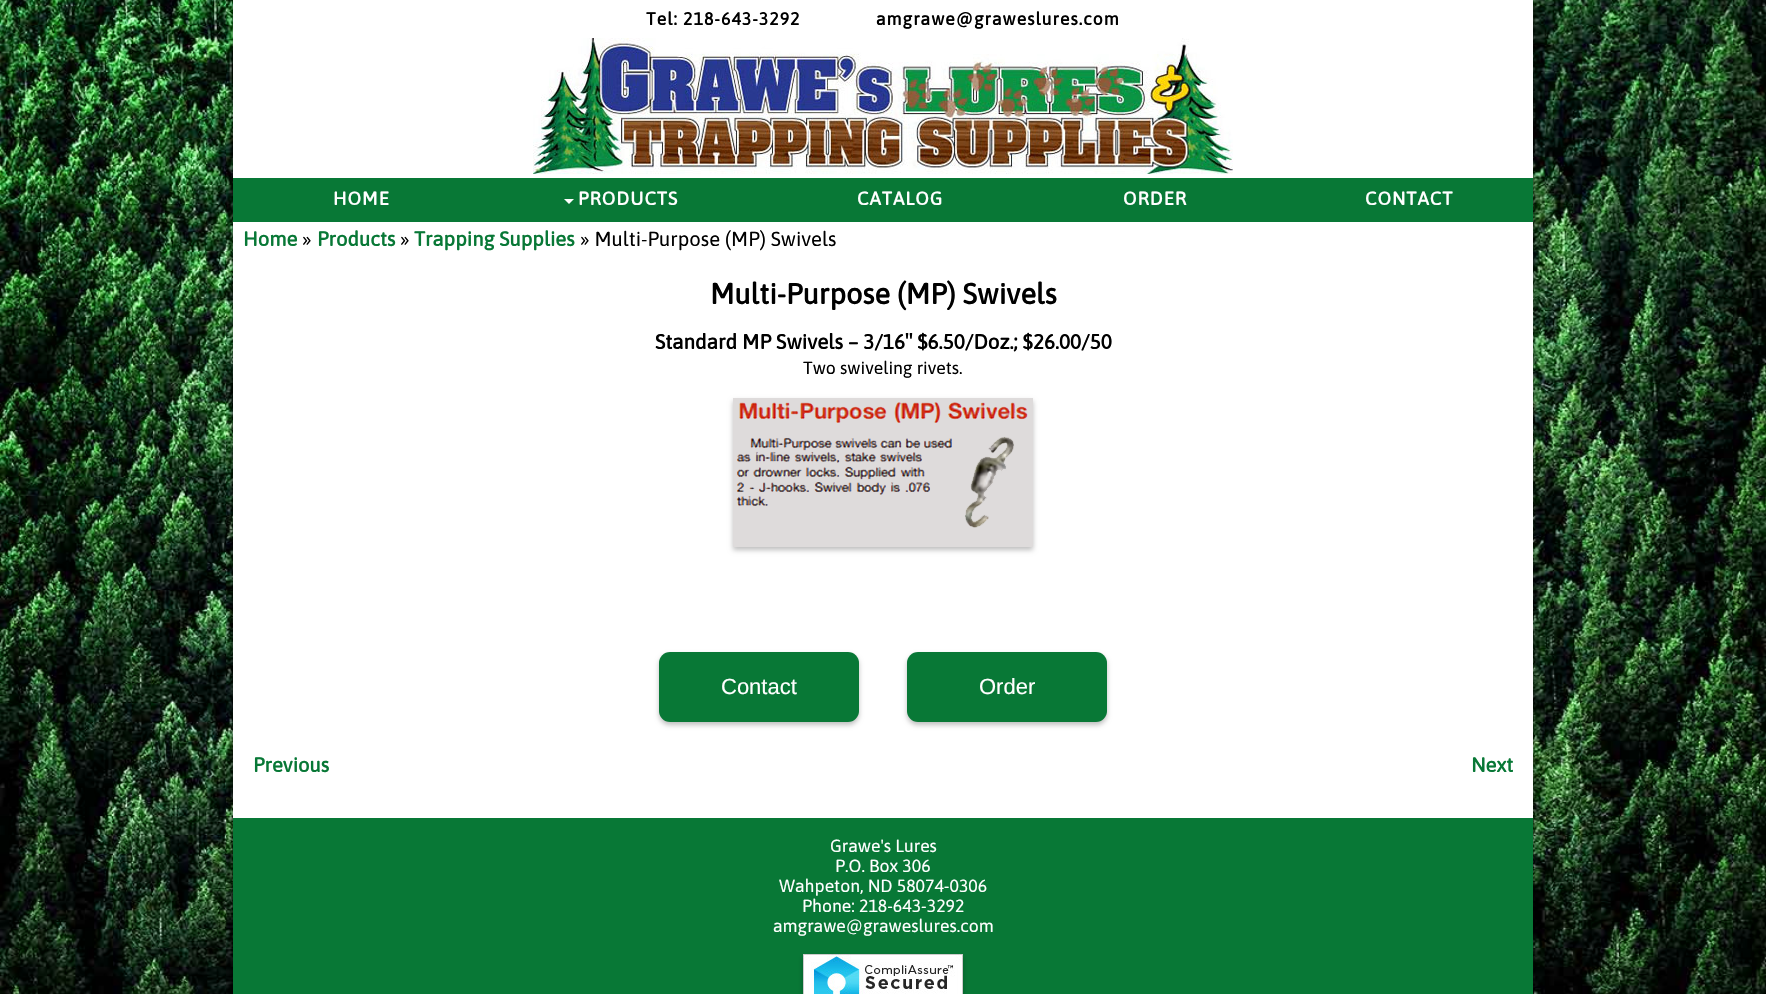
void draw(SkCanvas* canvas) {
	SkPaint fill;
	fill.setAntiAlias(true);
	auto makeFont = [&](const char* family, int weight, float size, bool italic = false) {
		SkFontStyle style(weight, SkFontStyle::kNormal_Width,
			italic ? SkFontStyle::kItalic_Slant : SkFontStyle::kUpright_Slant);
		SkFont result(fontMgr->matchFamilyStyle(family, style), size);
		result.setSubpixel(true);
		return result;
	};
	auto text = [&](const char* s, float x, float y, const SkFont& font) {
		canvas->drawString(s, x, y, font, fill);
	};
	auto spacedText = [&](const char* s, float x, float y, const SkFont& font, const SkPaint& ink, float letter, float word) {
		std::vector<SkGlyphID> glyphs(font.countText(s, strlen(s), SkTextEncoding::kUTF8));
		std::vector<float> xs(glyphs.size());
		font.textToGlyphs(s, strlen(s), SkTextEncoding::kUTF8, glyphs);
		font.getXPos(glyphs, xs, x);
		float extra = 0;
		for (size_t i = 0; i < glyphs.size(); i++) {
			xs[i] += extra;
			extra += letter + word * (glyphs[i] == font.unicharToGlyph(' '));
		}
		canvas->drawTextBlob(SkTextBlob::MakeFromPosHGlyphs(glyphs, xs, y, font), 0, 0, ink);
	};
	auto box = [&](float l, float t, float r, float b) {
		canvas->drawRect(SkRect::MakeLTRB(l, t, r, b), fill);
	};
	auto roundBox = [&](float l, float t, float r, float b, float radius) {
		canvas->drawRoundRect(SkRect::MakeLTRB(l, t, r, b), radius, radius, fill);
	};
	auto picture = [&](const char* path, float l, float t, float r, float b) {
		auto image = SkImages::DeferredFromEncodedData(SkData::MakeFromFileName(path));
		canvas->drawImageRect(image, SkRect::MakeLTRB(l, t, r, b), SkSamplingOptions());
	};
	canvas->clear(0xFFFFFFFF);
	picture("image0.png", 0, 0, 1766, 994);
	fill.setColor(0xBF000000);
	fill.setMaskFilter(SkMaskFilter::MakeBlur(kNormal_SkBlurStyle, 2.5f));
	canvas->drawRect(SkRect::MakeLTRB(233, 3, 1533, 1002), fill);
	fill.setMaskFilter(nullptr);
	fill.setColor(0xFFFFFFFF);
	box(233, 0, 1533, 178);
	picture("image1.png", 533, 38, 1233, 174);
	fill.setColor(0xFF087836);
	box(233, 178, 1533, 222);
	fill.setColor(0xFFFFFFFF);
	canvas->drawPath(SkPathBuilder().moveTo(564, 199).lineTo(574, 199).lineTo(569, 204).close().detach(), fill);
	box(233, 222, 1533, 818);
	fill.setColor(0x40000000);
	fill.setMaskFilter(SkMaskFilter::MakeBlur(kNormal_SkBlurStyle, 2.5f));
	canvas->drawRect(SkRect::MakeLTRB(733, 401, 1033, 550), fill);
	fill.setMaskFilter(nullptr);
	picture("image2.png", 733, 398, 1033, 547);
	fill.setMaskFilter(SkMaskFilter::MakeBlur(kNormal_SkBlurStyle, 2.5f));
	canvas->drawRoundRect(SkRect::MakeLTRB(659, 655, 859, 725), 11, 11, fill);
	fill.setMaskFilter(nullptr);
	fill.setColor(0xFF087836);
	roundBox(659, 652, 859, 722, 11);
	fill.setColor(0x40000000);
	fill.setMaskFilter(SkMaskFilter::MakeBlur(kNormal_SkBlurStyle, 2.5f));
	canvas->drawRoundRect(SkRect::MakeLTRB(907, 655, 1107, 725), 11, 11, fill);
	fill.setMaskFilter(nullptr);
	fill.setColor(0xFF087836);
	roundBox(907, 652, 1107, 722, 11);
	box(233, 818, 1533, 994);
	fill.setColor(0x40000000);
	fill.setMaskFilter(SkMaskFilter::MakeBlur(kNormal_SkBlurStyle, 2.5f));
	canvas->drawRect(SkRect::MakeLTRB(803, 957, 963, 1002), fill);
	fill.setMaskFilter(nullptr);
	picture("image3.png", 803, 954, 963, 994);
	auto font1 = makeFont("Asap", 700, 17.6f);
	fill.setColor(0xFF000000);
	spacedText("Tel: 218-643-3292", 646, 25, font1, fill, 1, 0);
	spacedText("amgrawe@graweslures.com", 876, 25, font1, fill, 1, 0);
	auto font2 = makeFont("Asap", 700, 18.5f);
	fill.setColor(0xFFFFFFFF);
	spacedText("HOME", 333, 205, font2, fill, 1, 0);
	spacedText("PRODUCTS", 578, 205, font2, fill, 1, 0);
	spacedText("CATALOG", 857, 205, font2, fill, 1, 0);
	spacedText("ORDER", 1123, 205, font2, fill, 1, 0);
	spacedText("CONTACT", 1365, 205, font2, fill, 1, 0);
	auto font3 = makeFont("Asap", 700, 20.25f);
	fill.setColor(0xFF087836);
	text("Home", 243, 246, font3);
	auto font4 = makeFont("Asap", 400, 20.25f);
	fill.setColor(0xFF000000);
	text("»", 302, 246, font4);
	fill.setColor(0xFF087836);
	text("Products", 317, 246, font3);
	fill.setColor(0xFF000000);
	text("»", 400, 246, font4);
	fill.setColor(0xFF087836);
	text("Trapping Supplies", 414, 246, font3);
	fill.setColor(0xFF000000);
	text("» Multi-Purpose (MP) Swivels", 580, 246, font4);
	auto font5 = makeFont("Asap", 700, 29);
	text("Multi-Purpose (MP) Swivels", 710, 304, font5);
	auto font6 = makeFont("Asap", 700, 20.6f);
	text("Standard MP Swivels – 3/16″ $6.50/Doz.; $26.00/50", 655, 349, font6);
	auto font7 = makeFont("Asap", 400, 17.6f);
	text("Two swiveling rivets.", 803, 374, font7);
	auto font8 = makeFont("Liberation Sans", 400, 22);
	fill.setColor(0xFFFFFFFF);
	text("Contact", 721, 694, font8);
	text("Order", 979, 694, font8);
	fill.setColor(0xFF087836);
	text("Previous", 253, 772, font3);
	text("Next", 1471, 772, font3);
	fill.setColor(0xFFFFFFFF);
	text("Grawe's Lures", 830, 852, font7);
	text("P.O. Box 306", 835, 872, font7);
	text("Wahpeton, ND 58074-0306", 779, 892, font7);
	text("Phone: 218-643-3292", 802, 912, font7);
	text("amgrawe@graweslures.com", 773, 932, font7);
}
